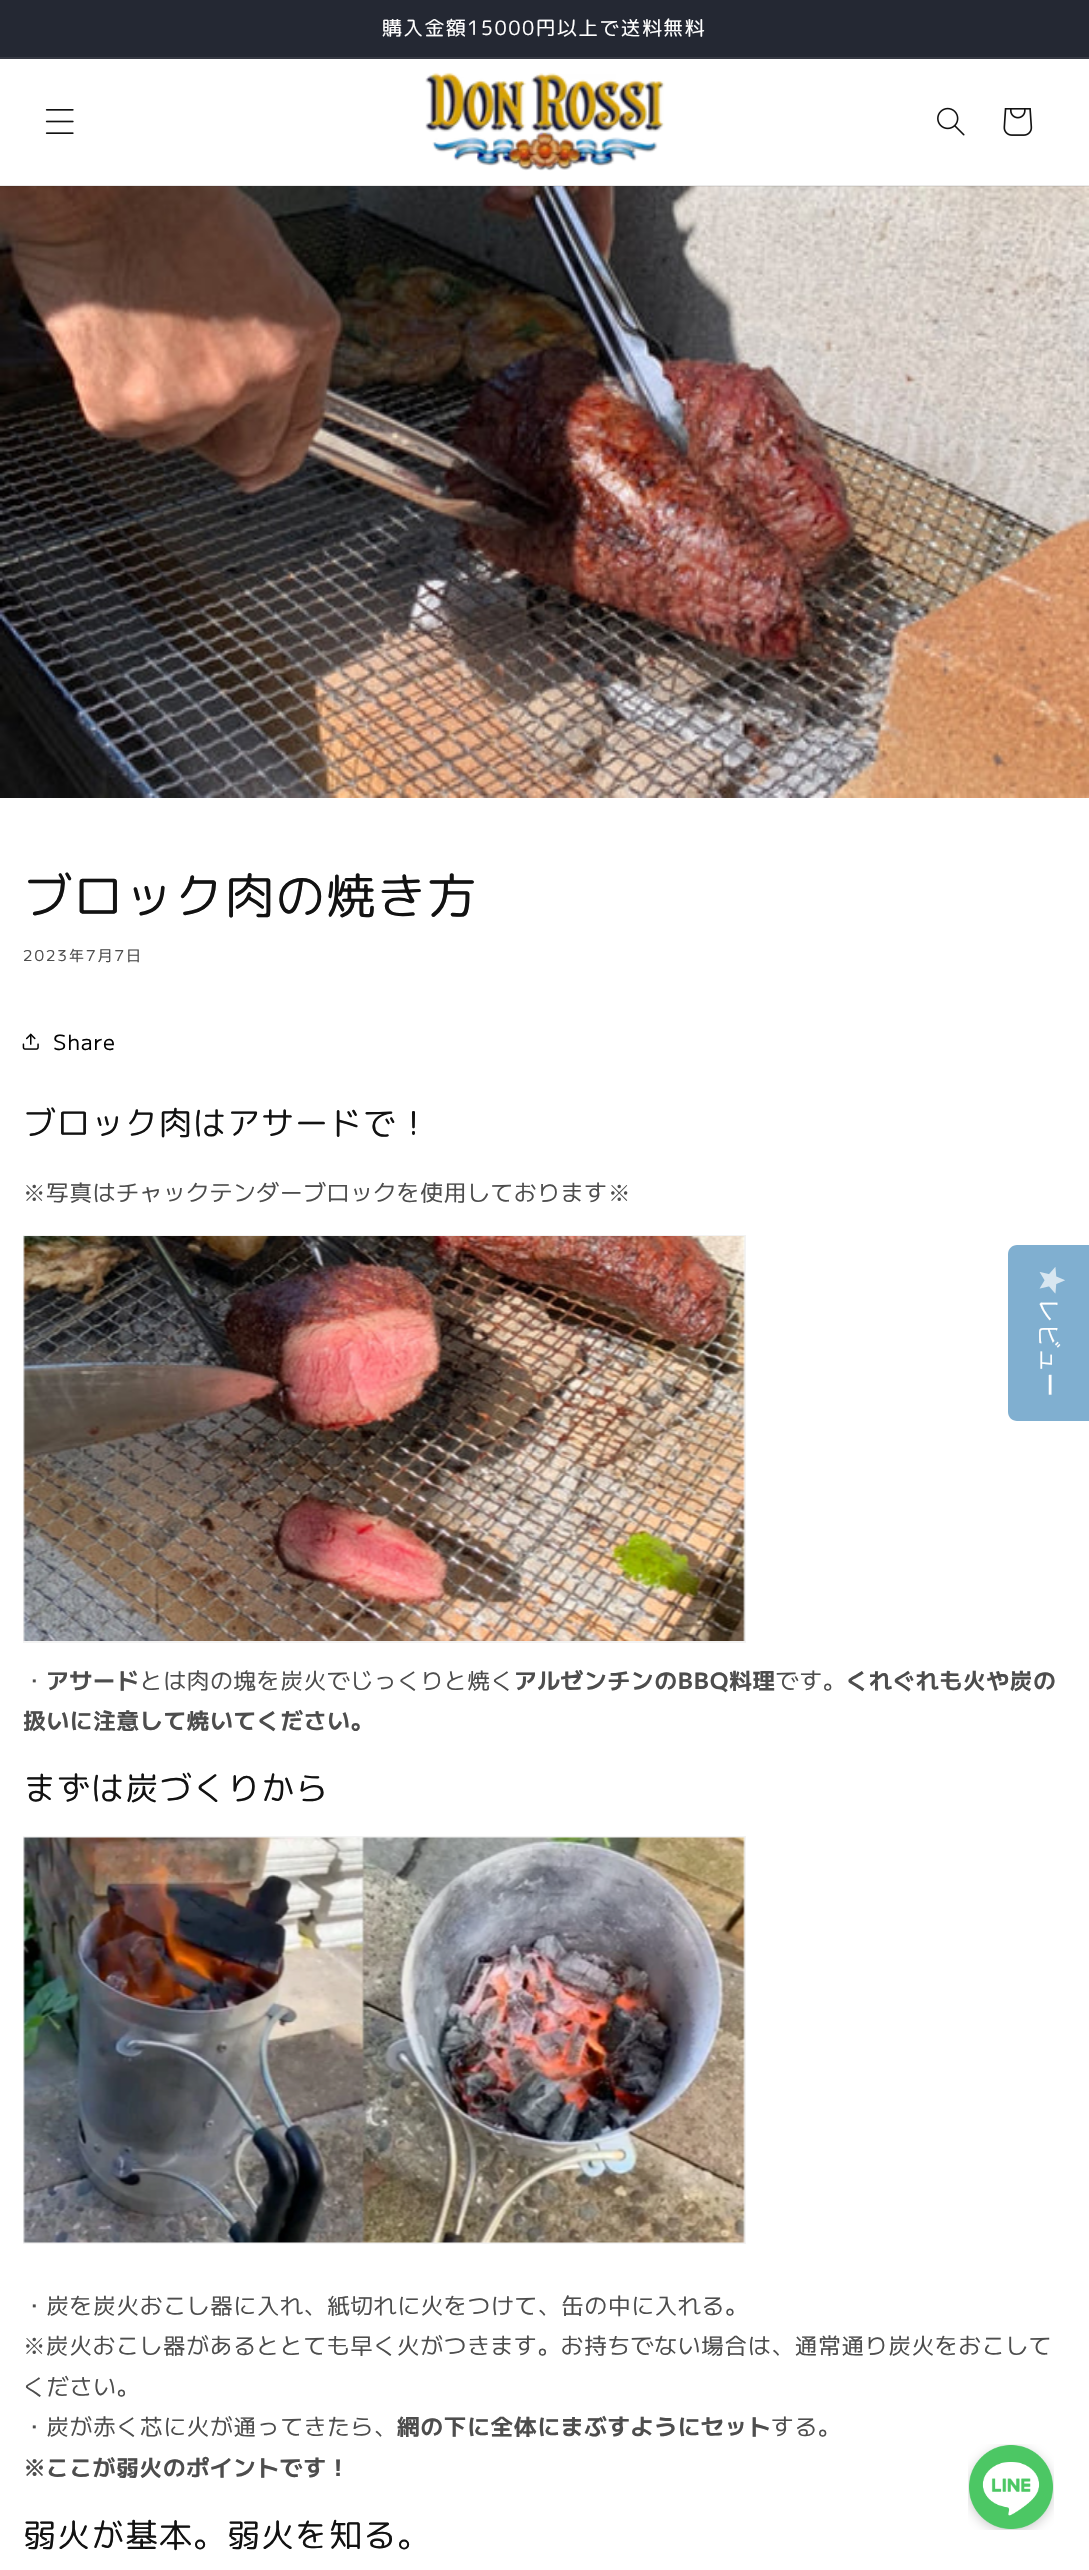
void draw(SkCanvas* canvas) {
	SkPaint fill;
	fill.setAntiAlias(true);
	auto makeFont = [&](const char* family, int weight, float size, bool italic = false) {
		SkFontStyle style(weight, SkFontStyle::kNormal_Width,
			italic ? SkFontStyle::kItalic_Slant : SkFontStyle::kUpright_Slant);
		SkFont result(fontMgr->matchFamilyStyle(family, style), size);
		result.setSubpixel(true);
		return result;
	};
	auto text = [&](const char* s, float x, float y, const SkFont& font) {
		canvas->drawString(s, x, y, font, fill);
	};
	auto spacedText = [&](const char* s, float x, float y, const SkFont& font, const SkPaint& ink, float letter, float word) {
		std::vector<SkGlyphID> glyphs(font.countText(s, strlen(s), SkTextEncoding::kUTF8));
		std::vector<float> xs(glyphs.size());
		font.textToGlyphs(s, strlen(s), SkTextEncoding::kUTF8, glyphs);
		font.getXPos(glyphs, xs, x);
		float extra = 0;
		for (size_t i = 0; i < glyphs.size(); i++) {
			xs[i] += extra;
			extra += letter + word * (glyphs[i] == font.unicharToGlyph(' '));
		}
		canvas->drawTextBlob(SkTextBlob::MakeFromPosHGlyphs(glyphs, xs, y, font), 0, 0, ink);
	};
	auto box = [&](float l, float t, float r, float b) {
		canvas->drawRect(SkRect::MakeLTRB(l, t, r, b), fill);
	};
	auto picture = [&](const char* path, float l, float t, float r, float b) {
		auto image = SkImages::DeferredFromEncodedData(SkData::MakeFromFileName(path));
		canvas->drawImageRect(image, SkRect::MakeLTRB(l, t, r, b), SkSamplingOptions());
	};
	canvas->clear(0xFFFFFFFF);
	fill.setColor(0xFF242833);
	box(0, 0, 1089, 57);
	fill.setColor(0xFF363943);
	box(0, 57, 1089, 59);
	picture("image4.png", 0, 186, 1089, 798);
	fill.setColor(0x14121212);
	box(0, 185, 1089, 187);
	picture("image0.png", 45, 109, 74, 134);
	picture("image1.png", 425, 72, 665, 171);
	picture("image2.png", 937, 107, 965, 136);
	picture("image3.png", 1003, 108, 1033, 136);
	picture("image5.png", 22, 1033, 39, 1050);
	fill.setStyle(SkPaint::kStroke_Style);
	fill.setStrokeWidth(2);
	fill.setColor(0xFFF3F3F3);
	canvas->drawRect(SkRect::MakeLTRB(24, 1236, 745, 1642), fill);
	picture("image6.png", 23, 1236, 745, 1641);
	canvas->drawRect(SkRect::MakeLTRB(24, 1837, 745, 2243), fill);
	picture("image7.png", 23, 1837, 745, 2243);
	fill.setStyle(SkPaint::kFill_Style);
	fill.setColor(0xFF80AFD0);
	canvas->drawPath(SkPathBuilder().moveTo(1089, 1245).lineTo(1089, 1421).lineTo(1017, 1421).cubicTo(1012, 1421, 1008, 1417, 1008, 1412).lineTo(1008, 1254).cubicTo(1008, 1249, 1012, 1245, 1017, 1245).close().detach(), fill);
	picture("image8.png", 1039, 1267, 1065, 1294);
	picture("image9.png", 968, 2444, 1054, 2530);
	auto font1 = makeFont("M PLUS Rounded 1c", 400, 19.75f);
	fill.setColor(0xFFFFFFFF);
	spacedText("購入金額15000円以上で送料無料", 382, 35, font1, fill, 1.5f, 0);
	auto font2 = makeFont("M PLUS Rounded 1c", 400, 49.5f);
	fill.setColor(0xFF121212);
	spacedText("ブロック肉の焼き方", 23, 914, font2, fill, 1, 0);
	auto font3 = makeFont("M PLUS 1", 400, 15);
	fill.setColor(0xFF4D4D4D);
	spacedText("2023年7月7日", 23, 961, font3, fill, 2, 0);
	auto font4 = makeFont("M PLUS 1", 400, 21);
	fill.setColor(0xFF030303);
	spacedText("Share", 53, 1050, font4, fill, 0.9f, 0);
	auto font5 = makeFont("M PLUS Rounded 1c", 400, 33);
	fill.setColor(0xFF121212);
	spacedText("ブロック肉はアサードで！", 23, 1135, font5, fill, 1, 0);
	auto font6 = makeFont("WenQuanYi Zen Hei", 500, 22.5f);
	fill.setColor(0xFF4D4D4D);
	spacedText("※", 23, 1201, font6, fill, 0.9f, 0);
	auto font7 = makeFont("M PLUS 1", 400, 22.5f);
	spacedText("写真はチャックテンダーブロックを使用しております", 46, 1201, font7, fill, 0.9f, 0);
	spacedText("※", 608, 1201, font6, fill, 0.9f, 0);
	spacedText("・", 23, 1689, font7, fill, 0.9f, 0);
	auto font8 = makeFont("M PLUS 1", 700, 22.5f);
	spacedText("アサード", 46, 1689, font8, fill, 0.9f, 0);
	spacedText("とは肉の塊を炭火でじっくりと焼く", 140, 1689, font7, fill, 0.9f, 0);
	spacedText("アルゼンチンのBBQ料理", 514, 1689, font8, fill, 0.9f, 0);
	spacedText("です。", 776, 1689, font7, fill, 0.9f, 0);
	spacedText("くれぐれも火や炭の", 846, 1689, font8, fill, 0.9f, 0);
	spacedText("扱いに注意して焼いてください。", 23, 1729, font8, fill, 0.9f, 0);
	fill.setColor(0xFF121212);
	spacedText("まずは炭づくりから", 23, 1800, font5, fill, 1, 0);
	fill.setColor(0xFF4D4D4D);
	spacedText("・炭を炭火おこし器に入れ、紙切れに火をつけて、缶の中に入れる。", 23, 2314, font7, fill, 0.9f, 0);
	spacedText("※", 23, 2354, font6, fill, 0.9f, 0);
	spacedText("炭火おこし器があるととても早く火がつきます。お持ちでない場合は、通常通り炭火をおこして", 46, 2354, font7, fill, 0.9f, 0);
	spacedText("ください。", 23, 2395, font7, fill, 0.9f, 0);
	spacedText("・炭が赤く芯に火が通ってきたら、", 23, 2435, font7, fill, 0.9f, 0);
	spacedText("網の下に全体にまぶすようにセット", 397, 2435, font8, fill, 0.9f, 0);
	spacedText("する。", 771, 2435, font7, fill, 0.9f, 0);
	auto font9 = makeFont("WenQuanYi Zen Hei", 700, 22.5f);
	spacedText("※", 23, 2476, font9, fill, 0.9f, 0);
	spacedText("ここが弱火のポイントです！", 46, 2476, font8, fill, 0.9f, 0);
	fill.setColor(0xFF121212);
	spacedText("弱火が基本。弱火を知る。", 23, 2547, font5, fill, 1, 0);
	auto font10 = makeFont("WenQuanYi Zen Hei", 500, 24);
	fill.setColor(0xFFFFFFFF);
	canvas->save();
	canvas->rotate(90, 1041, 1299);
	text("レビュー", 1041, 1299, font10);
	canvas->restore();
}
